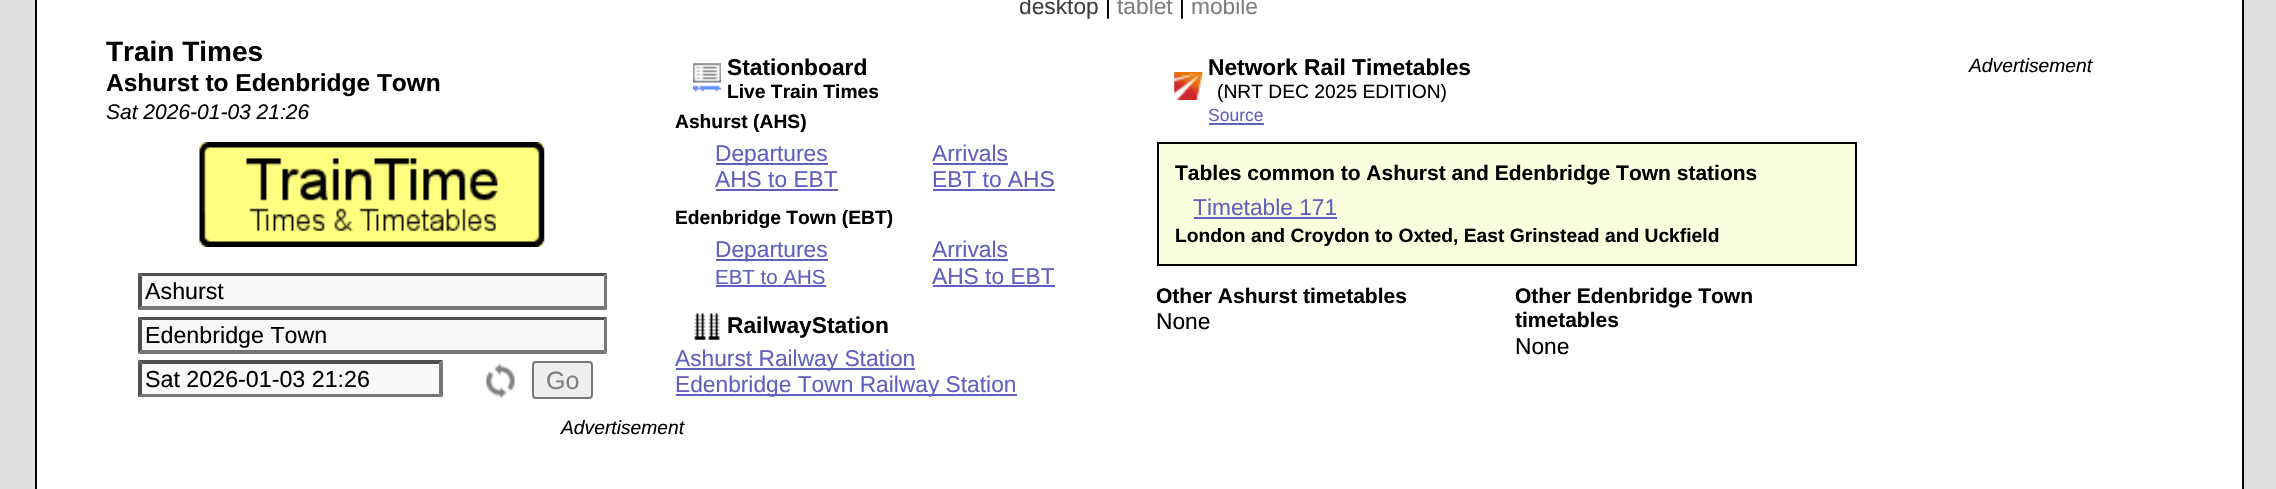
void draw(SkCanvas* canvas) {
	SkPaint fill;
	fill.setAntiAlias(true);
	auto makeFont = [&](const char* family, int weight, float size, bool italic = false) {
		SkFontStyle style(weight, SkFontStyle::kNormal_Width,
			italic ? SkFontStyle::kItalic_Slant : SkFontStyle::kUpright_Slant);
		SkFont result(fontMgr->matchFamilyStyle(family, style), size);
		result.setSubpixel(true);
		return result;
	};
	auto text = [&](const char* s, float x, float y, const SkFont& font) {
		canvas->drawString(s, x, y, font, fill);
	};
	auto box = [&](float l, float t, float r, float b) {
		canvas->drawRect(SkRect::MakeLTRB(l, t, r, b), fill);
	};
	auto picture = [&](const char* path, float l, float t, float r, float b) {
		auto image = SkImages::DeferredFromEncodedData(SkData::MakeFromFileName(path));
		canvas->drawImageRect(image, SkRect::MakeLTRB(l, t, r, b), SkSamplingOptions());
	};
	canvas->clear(0xFFE0E0E0);
	fill.setColor(0xFFFFFFFF);
	canvas->drawRect(SkRect::MakeLTRB(36, -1, 2243, 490), fill);
	fill.setStyle(SkPaint::kStroke_Style);
	fill.setStrokeWidth(2);
	fill.setColor(0xFF000000);
	canvas->drawRect(SkRect::MakeLTRB(36, -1, 2243, 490), fill);
	picture("image0.png", 199, 142, 545, 247);
	fill.setStyle(SkPaint::kFill_Style);
	fill.setColor(0xFFF8F8F8);
	box(138, 273, 607, 310);
	fill.setColor(0xFF4F4F4F);
	canvas->drawPath(SkPathBuilder().moveTo(138, 273).lineTo(607, 273).lineTo(604, 276).lineTo(142, 276).close().detach(), fill);
	fill.setColor(0xFF767676);
	canvas->drawPath(SkPathBuilder().moveTo(607, 273).lineTo(607, 310).lineTo(604, 306).lineTo(604, 276.5f).close().detach(), fill);
	canvas->drawPath(SkPathBuilder().moveTo(607, 310).lineTo(138, 310).lineTo(142, 306).lineTo(604, 306).close().detach(), fill);
	fill.setColor(0xFF4F4F4F);
	canvas->drawPath(SkPathBuilder().moveTo(138, 310).lineTo(138, 273).lineTo(142, 276.5f).lineTo(142, 306).close().detach(), fill);
	fill.setColor(0xFFF8F8F8);
	box(138, 317, 607, 354);
	fill.setColor(0xFF4F4F4F);
	canvas->drawPath(SkPathBuilder().moveTo(138, 317).lineTo(607, 317).lineTo(604, 320).lineTo(142, 320).close().detach(), fill);
	fill.setColor(0xFF767676);
	canvas->drawPath(SkPathBuilder().moveTo(607, 317).lineTo(607, 353.5f).lineTo(604, 350).lineTo(604, 320).close().detach(), fill);
	canvas->drawPath(SkPathBuilder().moveTo(607, 354).lineTo(138, 354).lineTo(142, 350).lineTo(604, 350).close().detach(), fill);
	fill.setColor(0xFF4F4F4F);
	canvas->drawPath(SkPathBuilder().moveTo(138, 353.5f).lineTo(138, 317).lineTo(142, 320).lineTo(142, 350).close().detach(), fill);
	fill.setColor(0xFFF8F8F8);
	box(138, 361, 443, 397);
	fill.setColor(0xFF4F4F4F);
	canvas->drawPath(SkPathBuilder().moveTo(138, 360).lineTo(443, 360).lineTo(439, 364).lineTo(142, 364).close().detach(), fill);
	fill.setColor(0xFF767676);
	canvas->drawPath(SkPathBuilder().moveTo(443, 360.5f).lineTo(443, 397).lineTo(439, 394).lineTo(439, 364).close().detach(), fill);
	canvas->drawPath(SkPathBuilder().moveTo(443, 397).lineTo(138, 397).lineTo(142, 394).lineTo(439, 394).close().detach(), fill);
	fill.setColor(0xFF4F4F4F);
	canvas->drawPath(SkPathBuilder().moveTo(138, 397).lineTo(138, 360.5f).lineTo(142, 364).lineTo(142, 394).close().detach(), fill);
	picture("image1.png", 486, 364, 515, 398);
	fill.setColor(0xFFEFEFEF);
	canvas->drawRoundRect(SkRect::MakeLTRB(533, 362, 592, 398), 3, 3, fill);
	fill.setStyle(SkPaint::kStroke_Style);
	fill.setColor(0xFF767676);
	canvas->drawRoundRect(SkRect::MakeLTRB(533, 362, 592, 398), 3, 3, fill);
	picture("image2.png", 693, 63, 721, 92);
	fill.setStyle(SkPaint::kFill_Style);
	fill.setColor(0xFF6060C0);
	box(716, 163, 828, 165);
	box(716, 189, 838, 191);
	box(933, 163, 1008, 165);
	box(933, 189, 1055, 191);
	box(716, 259, 828, 261);
	box(716, 285, 826, 287);
	box(933, 259, 1008, 261);
	box(933, 285, 1055, 287);
	picture("image3.png", 694, 313, 720, 340);
	box(676, 368, 915, 370);
	box(676, 394, 1017, 396);
	picture("image4.png", 1174, 72, 1203, 100);
	box(1209, 123, 1264, 125);
	fill.setColor(0xFFFBFFE0);
	canvas->drawRect(SkRect::MakeLTRB(1158, 143, 1856, 265), fill);
	fill.setStyle(SkPaint::kStroke_Style);
	fill.setColor(0xFF000000);
	canvas->drawRect(SkRect::MakeLTRB(1158, 143, 1856, 265), fill);
	fill.setStyle(SkPaint::kFill_Style);
	fill.setColor(0xFF6060C0);
	box(1194, 217, 1337, 219);
	auto font1 = makeFont("Liberation Sans", 400, 22.75f);
	fill.setColor(0xFF404040);
	text("desktop", 1019, 14, font1);
	fill.setColor(0xFF000000);
	text("|", 1105, 14, font1);
	fill.setColor(0xFF808080);
	text("tablet", 1117, 14, font1);
	fill.setColor(0xFF000000);
	text("|", 1179, 14, font1);
	fill.setColor(0xFF808080);
	text("mobile", 1191, 14, font1);
	auto font2 = makeFont("Liberation Sans", 700, 28);
	fill.setColor(0xFF000000);
	text("Train Times", 106, 61, font2);
	auto font3 = makeFont("Liberation Sans", 700, 24.5f);
	text("Ashurst to Edenbridge Town", 106, 91, font3);
	auto font4 = makeFont("Liberation Sans", 400, 21, true);
	text("Sat 2026-01-03 21:26", 106, 119, font4);
	auto font5 = makeFont("Liberation Sans", 400, 23.25f);
	text("Ashurst", 145, 299, font5);
	text("Edenbridge Town", 145, 343, font5);
	text("Sat 2026-01-03 21:26", 145, 387, font5);
	auto font6 = makeFont("Liberation Sans", 400, 25);
	fill.setColor(0xFF808080);
	text("Go", 546, 389, font6);
	auto font7 = makeFont("Liberation Sans", 700, 22.75f);
	fill.setColor(0xFF000000);
	text("Stationboard", 727, 75, font7);
	auto font8 = makeFont("Liberation Sans", 700, 19.25f);
	text("Live Train Times", 727, 98, font8);
	text("Ashurst (AHS)", 675, 128, font8);
	fill.setColor(0xFF6060C0);
	text("Departures", 715, 161, font1);
	text("AHS to EBT", 715, 187, font1);
	text("Arrivals", 932, 161, font1);
	text("EBT to AHS", 932, 187, font1);
	fill.setColor(0xFF000000);
	text("Edenbridge Town (EBT)", 675, 224, font8);
	fill.setColor(0xFF6060C0);
	text("Departures", 715, 257, font1);
	auto font9 = makeFont("Liberation Sans", 400, 20.5f);
	text("EBT to AHS", 715, 284, font9);
	text("Arrivals", 932, 257, font1);
	text("AHS to EBT", 932, 284, font1);
	fill.setColor(0xFF000000);
	text("RailwayStation", 727, 333, font7);
	fill.setColor(0xFF6060C0);
	text("Ashurst Railway Station", 675, 366, font1);
	text("Edenbridge Town Railway Station", 675, 392, font1);
	auto font10 = makeFont("Liberation Sans", 400, 19.25f, true);
	fill.setColor(0xFF000000);
	text("Advertisement", 561, 434, font10);
	text("Network Rail Timetables", 1208, 75, font7);
	auto font11 = makeFont("Liberation Sans", 400, 19.25f);
	text("(NRT DEC 2025 EDITION)", 1217, 98, font11);
	auto font12 = makeFont("Liberation Sans", 400, 17.5f);
	fill.setColor(0xFF6060C0);
	text("Source", 1208, 121, font12);
	auto font13 = makeFont("Liberation Sans", 700, 21);
	fill.setColor(0xFF000000);
	text("Tables common to Ashurst and Edenbridge Town stations", 1175, 180, font13);
	fill.setColor(0xFF6060C0);
	text("Timetable 171", 1193, 215, font1);
	fill.setColor(0xFF000000);
	text("London and Croydon to Oxted, East Grinstead and Uckfield", 1175, 242, font8);
	text("Other Ashurst timetables", 1156, 303, font13);
	text("None", 1156, 329, font1);
	text("Other Edenbridge Town", 1515, 303, font13);
	text("timetables", 1515, 327, font13);
	text("None", 1515, 354, font1);
	text("Advertisement", 1969, 72, font10);
}
